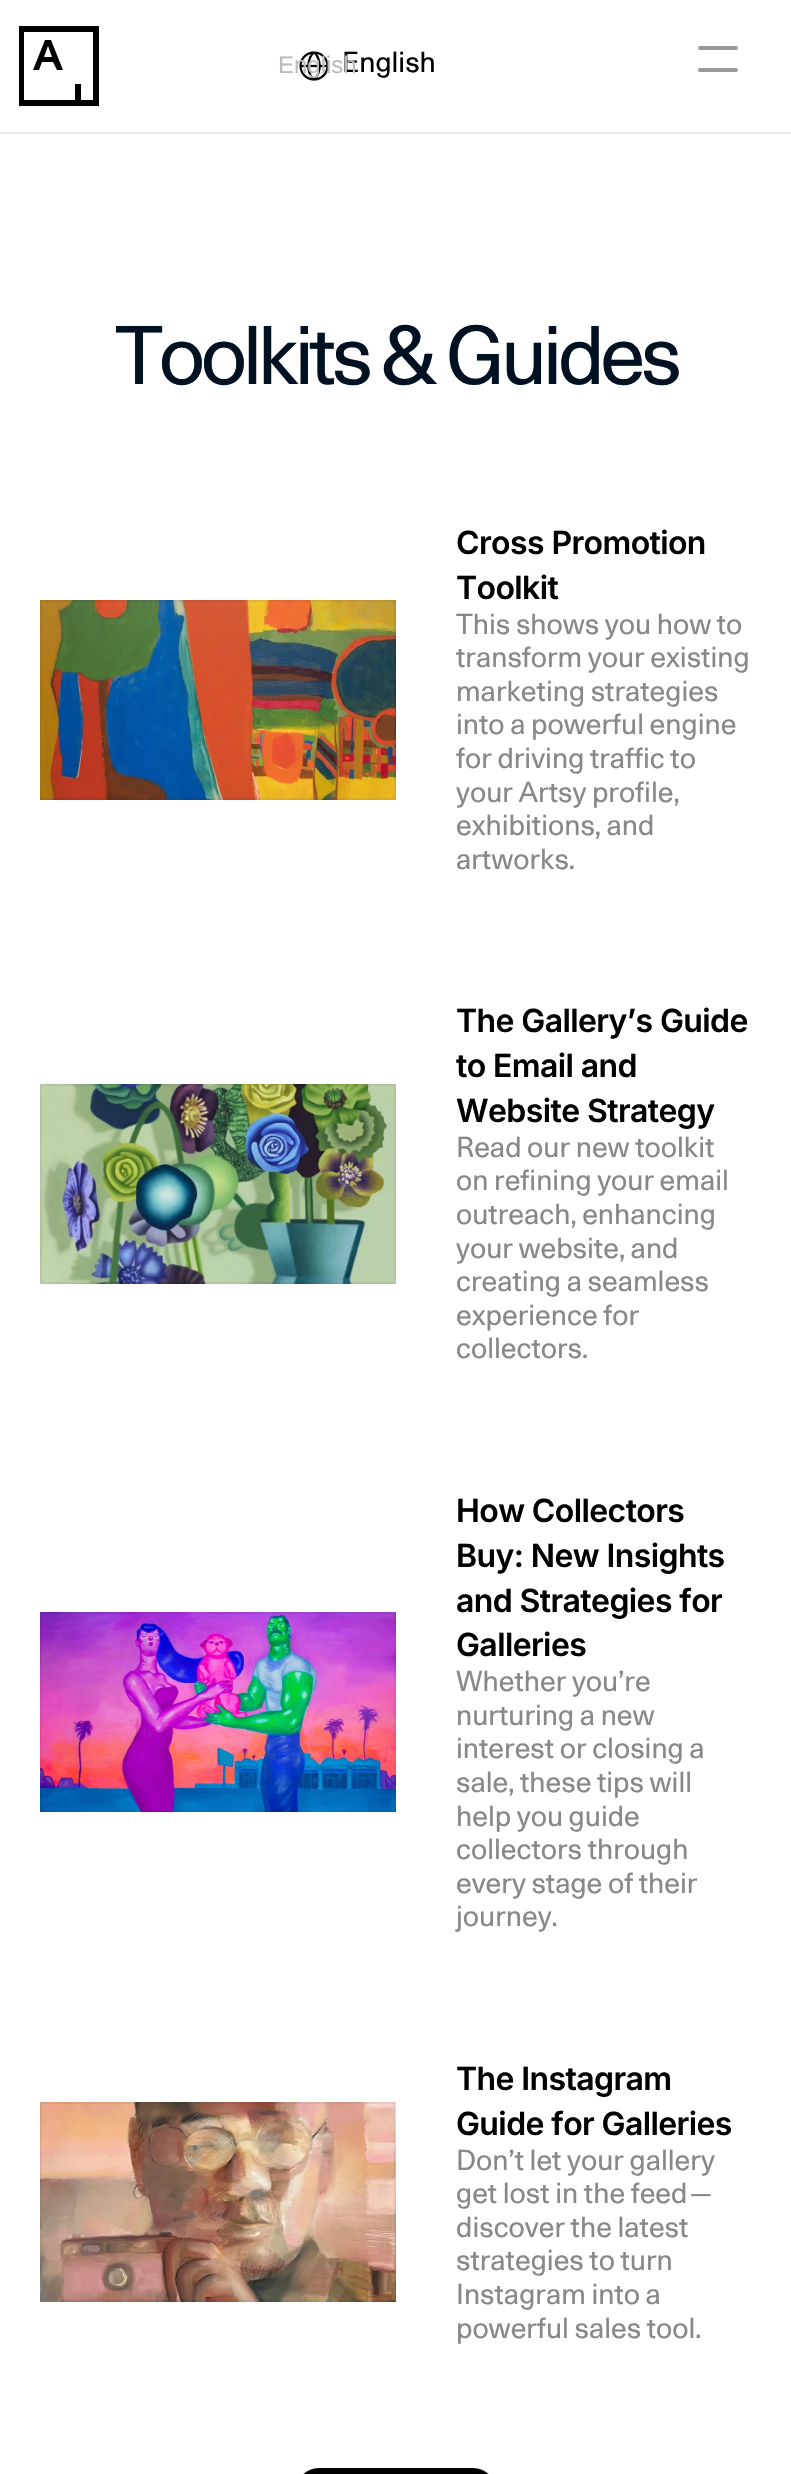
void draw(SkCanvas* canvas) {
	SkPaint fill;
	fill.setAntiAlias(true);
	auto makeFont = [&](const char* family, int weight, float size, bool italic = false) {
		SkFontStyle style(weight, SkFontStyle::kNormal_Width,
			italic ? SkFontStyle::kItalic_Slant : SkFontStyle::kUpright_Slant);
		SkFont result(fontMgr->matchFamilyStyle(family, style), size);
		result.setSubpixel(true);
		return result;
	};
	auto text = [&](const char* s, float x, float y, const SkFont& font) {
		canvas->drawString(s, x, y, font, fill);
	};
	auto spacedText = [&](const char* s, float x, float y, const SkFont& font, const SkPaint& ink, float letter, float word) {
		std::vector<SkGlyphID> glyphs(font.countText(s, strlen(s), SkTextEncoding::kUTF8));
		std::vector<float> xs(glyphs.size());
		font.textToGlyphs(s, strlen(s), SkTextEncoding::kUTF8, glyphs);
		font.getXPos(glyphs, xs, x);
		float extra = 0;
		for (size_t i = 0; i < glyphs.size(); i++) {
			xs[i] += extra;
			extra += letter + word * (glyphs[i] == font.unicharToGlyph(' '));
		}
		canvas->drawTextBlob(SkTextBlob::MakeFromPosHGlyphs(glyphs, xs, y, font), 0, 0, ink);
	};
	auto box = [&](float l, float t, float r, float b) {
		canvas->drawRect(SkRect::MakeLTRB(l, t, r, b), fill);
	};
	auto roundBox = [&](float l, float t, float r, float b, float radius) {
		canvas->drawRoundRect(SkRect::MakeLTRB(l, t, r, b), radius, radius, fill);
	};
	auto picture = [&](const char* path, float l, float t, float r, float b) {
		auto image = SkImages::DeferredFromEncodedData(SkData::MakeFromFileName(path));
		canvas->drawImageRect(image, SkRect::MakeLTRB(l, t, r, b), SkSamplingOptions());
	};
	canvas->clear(0xFFFFFFFF);
	fill.setColor(0xFF000000);
	canvas->drawPath(SkPathBuilder(SkPathFillType::kEvenOdd).moveTo(99, 106).lineTo(19, 106).lineTo(19, 26).lineTo(99, 26).close().moveTo(81, 100).lineTo(93, 100).lineTo(93, 32).lineTo(24, 32).lineTo(24, 100).lineTo(75, 100).lineTo(75, 84).lineTo(81, 84).close().moveTo(45, 40).lineTo(51, 40).lineTo(63, 70).lineTo(57, 70).lineTo(53, 62).lineTo(42, 62).lineTo(39, 70).lineTo(33, 70).close().moveTo(48, 46).lineTo(44, 57).lineTo(52, 57).close().detach(), fill);
	picture("image0.png", 299, 51, 329, 81);
	fill.setColor(0xFF999999);
	roundBox(698, 46, 738, 50, 2);
	roundBox(698, 68, 738, 72, 2);
	fill.setColor(0xFFEDEDED);
	box(0, 132, 791, 134);
	picture("image1.png", 40, 600, 396, 800);
	fill.setStyle(SkPaint::kStroke_Style);
	fill.setStrokeWidth(2);
	fill.setColor(0x0F000000);
	canvas->drawRect(SkRect::MakeLTRB(41, 601, 395, 799), fill);
	picture("image2.png", 40, 1084, 396, 1284);
	canvas->drawRect(SkRect::MakeLTRB(41, 1085, 395, 1283), fill);
	picture("image3.png", 40, 1612, 396, 1812);
	canvas->drawRect(SkRect::MakeLTRB(41, 1613, 395, 1811), fill);
	picture("image4.png", 40, 2102, 396, 2302);
	canvas->drawRect(SkRect::MakeLTRB(41, 2103, 395, 2301), fill);
	fill.setStyle(SkPaint::kFill_Style);
	fill.setColor(0xFF000000);
	roundBox(296, 2468, 496, 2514, 40);
	auto font1 = makeFont("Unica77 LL", 400, 28);
	text("English", 342, 72, font1);
	auto font2 = makeFont("Liberation Sans", 400, 24);
	fill.setColor(0xFFBBBBBB);
	text("English", 278, 73, font2);
	auto font3 = makeFont("Unica77 LL", 400, 80);
	fill.setColor(0xFF001122);
	spacedText("Toolkits & Guides", 115, 384, font3, fill, -4.4f, 0);
	auto font4 = makeFont("Inter", 600, 32);
	fill.setColor(0xFF000000);
	spacedText("Cross Promotion", 456, 554, font4, fill, -0.6f, 0);
	spacedText("Toolkit", 456, 599, font4, fill, -0.6f, 0);
	fill.setColor(0xFF888888);
	text("This shows you how to", 456, 634, font1);
	text("transform your existing", 456, 667, font1);
	text("marketing strategies", 456, 701, font1);
	text("into a powerful engine", 456, 734, font1);
	text("for driving traffic to", 456, 768, font1);
	text("your Artsy profile,", 456, 802, font1);
	text("exhibitions, and", 456, 835, font1);
	text("artworks.", 456, 869, font1);
	fill.setColor(0xFF000000);
	spacedText("The Gallery’s Guide", 456, 1032, font4, fill, -0.6f, 0);
	spacedText("to Email and", 456, 1077, font4, fill, -0.6f, 0);
	spacedText("Website Strategy", 456, 1122, font4, fill, -0.6f, 0);
	fill.setColor(0xFF888888);
	text("Read our new toolkit", 456, 1157, font1);
	text("on refining your email", 456, 1190, font1);
	text("outreach, enhancing", 456, 1224, font1);
	text("your website, and", 456, 1258, font1);
	text("creating a seamless", 456, 1291, font1);
	text("experience for", 456, 1325, font1);
	text("collectors.", 456, 1358, font1);
	fill.setColor(0xFF000000);
	spacedText("How Collectors", 456, 1522, font4, fill, -0.6f, 0);
	spacedText("Buy: New Insights", 456, 1567, font4, fill, -0.6f, 0);
	spacedText("and Strategies for", 456, 1612, font4, fill, -0.6f, 0);
	spacedText("Galleries", 456, 1656, font4, fill, -0.6f, 0);
	fill.setColor(0xFF888888);
	text("Whether you’re", 456, 1691, font1);
	text("nurturing a new", 456, 1725, font1);
	text("interest or closing a", 456, 1758, font1);
	text("sale, these tips will", 456, 1792, font1);
	text("help you guide", 456, 1826, font1);
	text("collectors through", 456, 1859, font1);
	text("every stage of their", 456, 1893, font1);
	text("journey.", 456, 1926, font1);
	fill.setColor(0xFF000000);
	spacedText("The Instagram", 456, 2090, font4, fill, -0.6f, 0);
	spacedText("Guide for Galleries", 456, 2135, font4, fill, -0.6f, 0);
	fill.setColor(0xFF888888);
	text("Don’t let your gallery", 456, 2170, font1);
	text("get lost in the feed—", 456, 2203, font1);
	text("discover the latest", 456, 2237, font1);
	text("strategies to turn", 456, 2270, font1);
	text("Instagram into a", 456, 2304, font1);
	text("powerful sales tool.", 456, 2338, font1);
}
